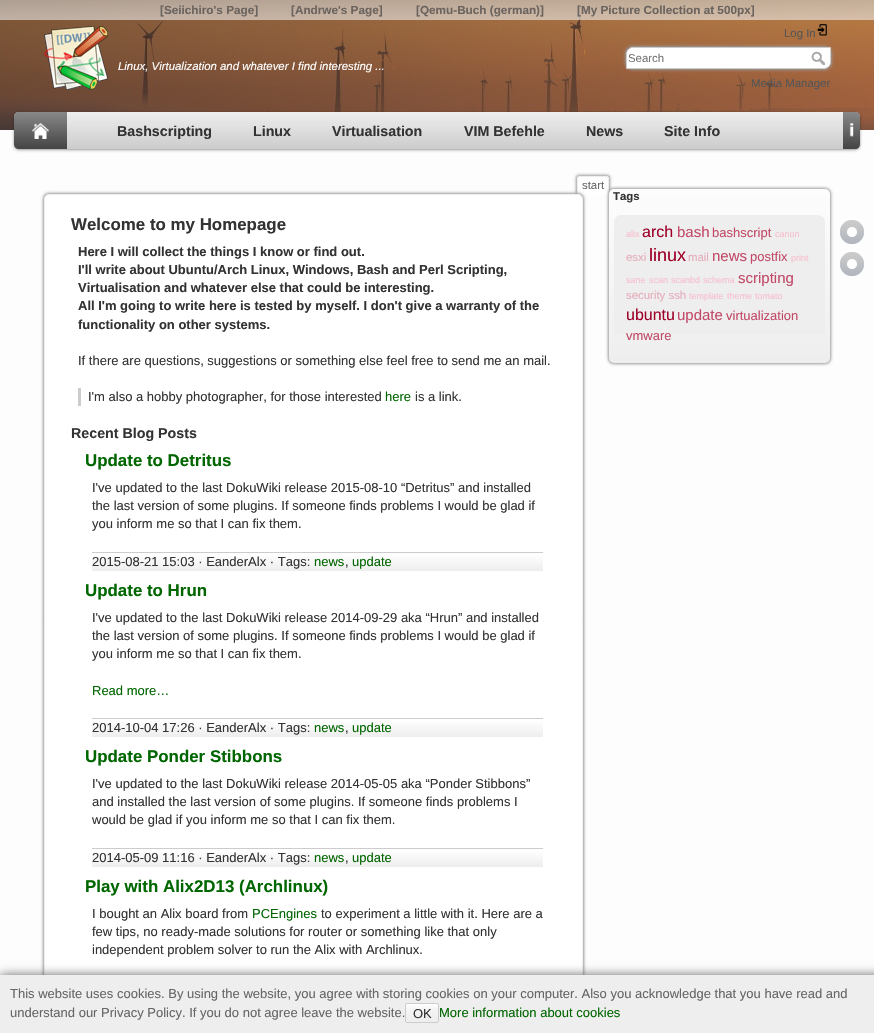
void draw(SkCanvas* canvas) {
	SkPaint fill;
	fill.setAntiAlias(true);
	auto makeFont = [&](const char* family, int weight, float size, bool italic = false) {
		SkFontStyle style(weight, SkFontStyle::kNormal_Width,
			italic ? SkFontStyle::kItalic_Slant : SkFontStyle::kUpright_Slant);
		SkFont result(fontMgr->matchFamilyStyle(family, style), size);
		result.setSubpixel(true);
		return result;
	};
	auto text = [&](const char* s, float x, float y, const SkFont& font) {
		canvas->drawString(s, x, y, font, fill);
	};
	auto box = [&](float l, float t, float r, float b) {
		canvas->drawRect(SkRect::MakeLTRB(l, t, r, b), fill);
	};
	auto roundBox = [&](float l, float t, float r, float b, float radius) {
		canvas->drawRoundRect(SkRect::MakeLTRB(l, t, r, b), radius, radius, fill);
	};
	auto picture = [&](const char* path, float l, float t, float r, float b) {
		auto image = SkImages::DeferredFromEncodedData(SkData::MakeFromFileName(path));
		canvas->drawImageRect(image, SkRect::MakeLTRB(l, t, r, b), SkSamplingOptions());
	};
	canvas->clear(0xFFFDFDFD);
	picture("image0.png", 0, 0, 874, 130);
	picture("image1.png", 44, 26, 108, 90);
	picture("image2.png", 817, 24, 827, 36);
	fill.setColor(0xFF999999);
	fill.setMaskFilter(SkMaskFilter::MakeBlur(kNormal_SkBlurStyle, 1.5f));
	canvas->drawRoundRect(SkRect::MakeLTRB(625, 46, 832, 70), 8, 8, fill);
	fill.setMaskFilter(nullptr);
	fill.setColor(0xFFFFFFFF);
	canvas->drawPath(SkPathBuilder().moveTo(633, 47.5f).lineTo(830, 47.5f).cubicTo(830.5f, 47.5f, 830.5f, 47.5f, 830.5f, 48).lineTo(830.5f, 62).cubicTo(830.5f, 65.5f, 827.5f, 68.5f, 824, 68.5f).lineTo(627, 68.5f).cubicTo(626.5f, 68.5f, 626.5f, 68.5f, 626.5f, 68).lineTo(626.5f, 54).cubicTo(626.5f, 50.5f, 629.5f, 47.5f, 633, 47.5f).close().detach(), fill);
	fill.setStyle(SkPaint::kStroke_Style);
	fill.setStrokeWidth(1);
	fill.setColor(0xFFCCCCCC);
	canvas->drawPath(SkPathBuilder().moveTo(633, 47.5f).lineTo(830, 47.5f).cubicTo(830.5f, 47.5f, 830.5f, 47.5f, 830.5f, 48).lineTo(830.5f, 62).cubicTo(830.5f, 65.5f, 827.5f, 68.5f, 824, 68.5f).lineTo(627, 68.5f).cubicTo(626.5f, 68.5f, 626.5f, 68.5f, 626.5f, 68).lineTo(626.5f, 54).cubicTo(626.5f, 50.5f, 629.5f, 47.5f, 633, 47.5f).close().detach(), fill);
	picture("image3.png", 811, 51, 825, 65);
	fill.setStyle(SkPaint::kFill_Style);
	fill.setColor(0x66000000);
	fill.setMaskFilter(SkMaskFilter::MakeBlur(kNormal_SkBlurStyle, 1.5f));
	canvas->drawRoundRect(SkRect::MakeLTRB(14, 113, 860, 150), 5, 5, fill);
	fill.setMaskFilter(nullptr);
	{
		const SkColor colors[] = {0xFFEEEEEE, 0xFFCCCCCC};
		const float stops[] = {0, 1};
		const SkPoint ends[] = {{437, 112}, {437, 149}};
		fill.setShader(SkGradientShader::MakeLinear(ends, colors, stops, 2, SkTileMode::kClamp));
		fill.setAlpha(255);
	}
	roundBox(14, 112, 860, 149, 5);
	{
		const SkColor colors[] = {0xFF888888, 0xFF444444};
		const float stops[] = {0, 1};
		const SkPoint ends[] = {{41, 112}, {41, 149}};
		fill.setShader(SkGradientShader::MakeLinear(ends, colors, stops, 2, SkTileMode::kClamp));
		fill.setAlpha(255);
	}
	canvas->drawPath(SkPathBuilder().moveTo(19, 112).lineTo(67, 112).lineTo(67, 149).lineTo(19, 149).cubicTo(16, 149, 14, 147, 14, 144).lineTo(14, 117).cubicTo(14, 114, 16, 112, 19, 112).close().detach(), fill);
	picture("image4.png", 32, 123, 49, 139);
	{
		const SkColor colors[] = {0xFF888888, 0xFF444444};
		const float stops[] = {0, 1};
		const SkPoint ends[] = {{852, 112}, {852, 149}};
		fill.setShader(SkGradientShader::MakeLinear(ends, colors, stops, 2, SkTileMode::kClamp));
		fill.setAlpha(255);
	}
	canvas->drawPath(SkPathBuilder().moveTo(843, 112).lineTo(855, 112).cubicTo(858, 112, 860, 114, 860, 117).lineTo(860, 144).cubicTo(860, 147, 858, 149, 855, 149).lineTo(843, 149).close().detach(), fill);
	picture("image5.png", 849, 122, 854, 137);
	canvas->save();
	canvas->clipRect(SkRect::MakeLTRB(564, 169, 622, 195));
	fill.setShader(nullptr);
	fill.setColor(0xFF999999);
	fill.setMaskFilter(SkMaskFilter::MakeBlur(kNormal_SkBlurStyle, 1.5f));
	canvas->drawRoundRect(SkRect::MakeLTRB(576, 175, 610, 196), 3, 3, fill);
	fill.setMaskFilter(nullptr);
	canvas->restore();
	fill.setColor(0xFFFFFFFF);
	canvas->drawPath(SkPathBuilder().moveTo(579, 177).lineTo(607, 177).cubicTo(607.5f, 177, 608, 177.5f, 608, 178).lineTo(608, 195).lineTo(578, 195).lineTo(578, 178).cubicTo(578, 177.5f, 578.5f, 177, 579, 177).close().detach(), fill);
	fill.setColor(0xFFEEEEEE);
	box(578, 176, 608, 177);
	box(608, 177, 609, 195);
	box(577, 177, 578, 195);
	fill.setColor(0xFF999999);
	fill.setMaskFilter(SkMaskFilter::MakeBlur(kNormal_SkBlurStyle, 1.5f));
	canvas->drawRoundRect(SkRect::MakeLTRB(43, 193, 584, 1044), 6, 6, fill);
	fill.setMaskFilter(nullptr);
	fill.setColor(0xFFFFFFFF);
	canvas->drawRoundRect(SkRect::MakeLTRB(44.5f, 194.5f, 582.5f, 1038.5f), 4.5f, 4.5f, fill);
	fill.setStyle(SkPaint::kStroke_Style);
	fill.setColor(0xFFEEEEEE);
	canvas->drawRoundRect(SkRect::MakeLTRB(44.5f, 194.5f, 582.5f, 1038.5f), 4.5f, 4.5f, fill);
	fill.setStyle(SkPaint::kFill_Style);
	fill.setColor(0xFFCCCCCC);
	box(78, 388, 81, 406);
	{
		const SkColor colors[] = {0xFFFFFFFF, 0xFFEEEEEE};
		const float stops[] = {0, 1};
		const SkPoint ends[] = {{318, 553}, {318, 571}};
		fill.setShader(SkGradientShader::MakeLinear(ends, colors, stops, 2, SkTileMode::kClamp));
		fill.setAlpha(255);
	}
	box(92, 556, 543, 571);
	fill.setShader(nullptr);
	fill.setColor(0xFFCCCCCC);
	box(92, 552, 543, 553);
	{
		const SkColor colors[] = {0xFFFFFFFF, 0xFFEEEEEE};
		const float stops[] = {0, 1};
		const SkPoint ends[] = {{318, 719}, {318, 737}};
		fill.setShader(SkGradientShader::MakeLinear(ends, colors, stops, 2, SkTileMode::kClamp));
		fill.setAlpha(255);
	}
	box(92, 722, 543, 737);
	fill.setShader(nullptr);
	fill.setColor(0xFFCCCCCC);
	box(92, 718, 543, 719);
	{
		const SkColor colors[] = {0xFFFFFFFF, 0xFFEEEEEE};
		const float stops[] = {0, 1};
		const SkPoint ends[] = {{318, 849}, {318, 867}};
		fill.setShader(SkGradientShader::MakeLinear(ends, colors, stops, 2, SkTileMode::kClamp));
		fill.setAlpha(255);
	}
	box(92, 852, 543, 867);
	fill.setShader(nullptr);
	fill.setColor(0xFFCCCCCC);
	box(92, 848, 543, 849);
	fill.setColor(0xFF666666);
	fill.setMaskFilter(SkMaskFilter::MakeBlur(kNormal_SkBlurStyle, 5));
	canvas->drawRect(SkRect::MakeLTRB(0, 975, 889, 1033), fill);
	fill.setMaskFilter(nullptr);
	fill.setColor(0xFFEEEEEE);
	box(0, 975, 874, 1033);
	picture("image6.png", 405, 1004, 439, 1023);
	fill.setStyle(SkPaint::kStroke_Style);
	fill.setColor(0xFFCCCCCC);
	canvas->drawRoundRect(SkRect::MakeLTRB(405.5f, 1003.5f, 438.5f, 1022.5f), 1.5f, 1.5f, fill);
	fill.setStyle(SkPaint::kFill_Style);
	fill.setColor(0xFF999999);
	fill.setMaskFilter(SkMaskFilter::MakeBlur(kNormal_SkBlurStyle, 1.5f));
	canvas->drawRoundRect(SkRect::MakeLTRB(608, 188, 831, 364), 6, 6, fill);
	fill.setMaskFilter(nullptr);
	{
		const SkColor colors[] = {0xFFFDFDFD, 0xFFEEEEEE};
		const float stops[] = {0, 1};
		const SkPoint ends[] = {{720, 189}, {720, 363}};
		fill.setShader(SkGradientShader::MakeLinear(ends, colors, stops, 2, SkTileMode::kClamp));
		fill.setAlpha(255);
	}
	roundBox(609, 189, 830, 363, 5);
	fill.setShader(nullptr);
	fill.setColor(0xFFEEEEEE);
	box(619, 215, 820, 217);
	box(820, 216, 822, 217);
	box(617, 216, 619, 217);
	box(616, 217, 823, 220);
	box(823, 218, 824, 220);
	box(615, 218, 616, 220);
	box(614, 220, 825, 334);
	picture("image7.png", 840, 220, 865, 244);
	picture("image7.png", 840, 252, 865, 276);
	auto font1 = makeFont("Liberation Sans", 700, 11.75f);
	fill.setColor(0xFF6A635E);
	text("[Seiichiro's Page]", 160, 14, font1);
	text("[Andrwe's Page]", 291, 14, font1);
	text("[Qemu-Buch (german)]", 416, 14, font1);
	text("[My Picture Collection at 500px]", 577, 14, font1);
	auto font2 = makeFont("Liberation Sans", 400, 11.4f, true);
	fill.setColor(0xFFFFFFFF);
	text("Linux, Virtualization and whatever I find interesting ...", 118, 70, font2);
	auto font3 = makeFont("Liberation Sans", 400, 11.4f);
	fill.setColor(0xFF555555);
	text("Log In", 784, 37, font3);
	fill.setColor(0xFF757575);
	text("Search", 628, 62, font3);
	fill.setColor(0xFF555555);
	text("Media Manager", 751, 87, font3);
	auto font4 = makeFont("Liberation Sans", 700, 14.25f);
	fill.setColor(0xFF333333);
	text("Bashscripting", 117, 136, font4);
	text("Linux", 253, 136, font4);
	text("Virtualisation", 332, 136, font4);
	text("VIM Befehle", 464, 136, font4);
	text("News", 586, 136, font4);
	text("Site Info", 664, 136, font4);
	fill.setColor(0xFF666666);
	text("start", 582, 189, font3);
	auto font5 = makeFont("Liberation Sans", 700, 16.9f);
	fill.setColor(0xFF333333);
	text("Welcome to my Homepage", 71, 230, font5);
	auto font6 = makeFont("Liberation Sans", 700, 13);
	text("Here I will collect the things I know or find out.", 78, 256, font6);
	text("I'll write about Ubuntu/Arch Linux, Windows, Bash and Perl Scripting,", 78, 274, font6);
	text("Virtualisation and whatever else that could be interesting.", 78, 292, font6);
	text("All I'm going to write here is tested by myself. I don't give a warranty of the", 78, 310, font6);
	text("functionality on other systems.", 78, 329, font6);
	auto font7 = makeFont("Liberation Sans", 400, 13);
	text("If there are questions, suggestions or something else feel free to send me an mail.", 78, 365, font7);
	text("I'm also a hobby photographer, for those interested", 88, 401, font7);
	fill.setColor(0xFF006600);
	text("here", 385, 401, font7);
	fill.setColor(0xFF333333);
	text("is a link.", 415, 401, font7);
	text("Recent Blog Posts", 71, 438, font4);
	fill.setColor(0xFF006600);
	text("Update to Detritus", 85, 466, font5);
	fill.setColor(0xFF333333);
	text("I've updated to the last DokuWiki release 2015-08-10 “Detritus” and installed", 92, 492, font7);
	text("the last version of some plugins. If someone finds problems I would be glad if", 92, 510, font7);
	text("you inform me so that I can fix them.", 92, 528, font7);
	text("2015-08-21 15:03 · EanderAlx · Tags:", 92, 566, font7);
	fill.setColor(0xFF006600);
	text("news", 314, 566, font7);
	fill.setColor(0xFF333333);
	text(",", 345, 566, font7);
	fill.setColor(0xFF006600);
	text("update", 352, 566, font7);
	text("Update to Hrun", 85, 596, font5);
	fill.setColor(0xFF333333);
	text("I've updated to the last DokuWiki release 2014-09-29 aka “Hrun” and installed", 92, 622, font7);
	text("the last version of some plugins. If someone finds problems I would be glad if", 92, 640, font7);
	text("you inform me so that I can fix them.", 92, 658, font7);
	fill.setColor(0xFF006600);
	text("Read more…", 92, 695, font7);
	fill.setColor(0xFF333333);
	text("2014-10-04 17:26 · EanderAlx · Tags:", 92, 732, font7);
	fill.setColor(0xFF006600);
	text("news", 314, 732, font7);
	fill.setColor(0xFF333333);
	text(",", 345, 732, font7);
	fill.setColor(0xFF006600);
	text("update", 352, 732, font7);
	text("Update Ponder Stibbons", 85, 762, font5);
	fill.setColor(0xFF333333);
	text("I've updated to the last DokuWiki release 2014-05-05 aka “Ponder Stibbons”", 92, 788, font7);
	text("and installed the last version of some plugins. If someone finds problems I", 92, 806, font7);
	text("would be glad if you inform me so that I can fix them.", 92, 824, font7);
	text("2014-05-09 11:16 · EanderAlx · Tags:", 92, 862, font7);
	fill.setColor(0xFF006600);
	text("news", 314, 862, font7);
	fill.setColor(0xFF333333);
	text(",", 345, 862, font7);
	fill.setColor(0xFF006600);
	text("update", 352, 862, font7);
	text("Play with Alix2D13 (Archlinux)", 85, 892, font5);
	fill.setColor(0xFF333333);
	text("I bought an Alix board from", 92, 918, font7);
	fill.setColor(0xFF006600);
	text("PCEngines", 252, 918, font7);
	fill.setColor(0xFF333333);
	text("to experiment a little with it. Here are a", 321, 918, font7);
	text("few tips, no ready-made solutions for router or something like that only", 92, 936, font7);
	text("independent problem solver to run the Alix with Archlinux.", 92, 954, font7);
	fill.setColor(0xFF666666);
	text("This website uses cookies. By using the website, you agree with storing cookies on your computer. Also you acknowledge that you have read and", 10, 998, font7);
	text("understand our Privacy Policy. If you do not agree leave the website.", 10, 1017, font7);
	fill.setColor(0xFF333333);
	text("OK", 413, 1018, font7);
	fill.setColor(0xFF006600);
	text("More information about cookies", 439, 1017, font7);
	auto font8 = makeFont("Liberation Sans", 700, 11.4f);
	fill.setColor(0xFF333333);
	text("Tags", 613, 200, font8);
	auto font9 = makeFont("Liberation Sans", 400, 9);
	fill.setColor(0xFFF7BFCE);
	text("alix", 626, 237, font9);
	auto font10 = makeFont("Liberation Sans", 400, 16);
	fill.setColor(0xFF9E0028);
	text("arch", 642, 237, font10);
	auto font11 = makeFont("Liberation Sans", 400, 15);
	fill.setColor(0xFFC24A68);
	text("bash", 677, 237, font11);
	text("bashscript", 712, 237, font7);
	fill.setColor(0xFFF7BFCE);
	text("canon", 775, 237, font9);
	fill.setColor(0xFFE5AEBC);
	text("esxi", 626, 261, font3);
	auto font12 = makeFont("Liberation Sans", 400, 18);
	fill.setColor(0xFF9E0028);
	text("linux", 649, 261, font12);
	fill.setColor(0xFFE5AEBC);
	text("mail", 688, 261, font3);
	fill.setColor(0xFFC24A68);
	text("news", 712, 261, font11);
	text("postfix", 750, 261, font7);
	fill.setColor(0xFFF7BFCE);
	text("print", 791, 261, font9);
	text("sane", 626, 283, font9);
	text("scan", 649, 283, font9);
	text("scanbd", 671, 283, font9);
	text("schema", 703, 283, font9);
	fill.setColor(0xFFC24A68);
	text("scripting", 738, 283, font11);
	fill.setColor(0xFFE5AEBC);
	text("security ssh", 626, 299, font3);
	fill.setColor(0xFFF7BFCE);
	text("template", 689, 299, font9);
	text("theme", 727, 299, font9);
	text("tomato", 755, 299, font9);
	fill.setColor(0xFF9E0028);
	text("ubuntu", 626, 320, font10);
	fill.setColor(0xFFC24A68);
	text("update", 677, 320, font11);
	text("virtualization", 726, 320, font7);
	text("vmware", 626, 340, font7);
}
